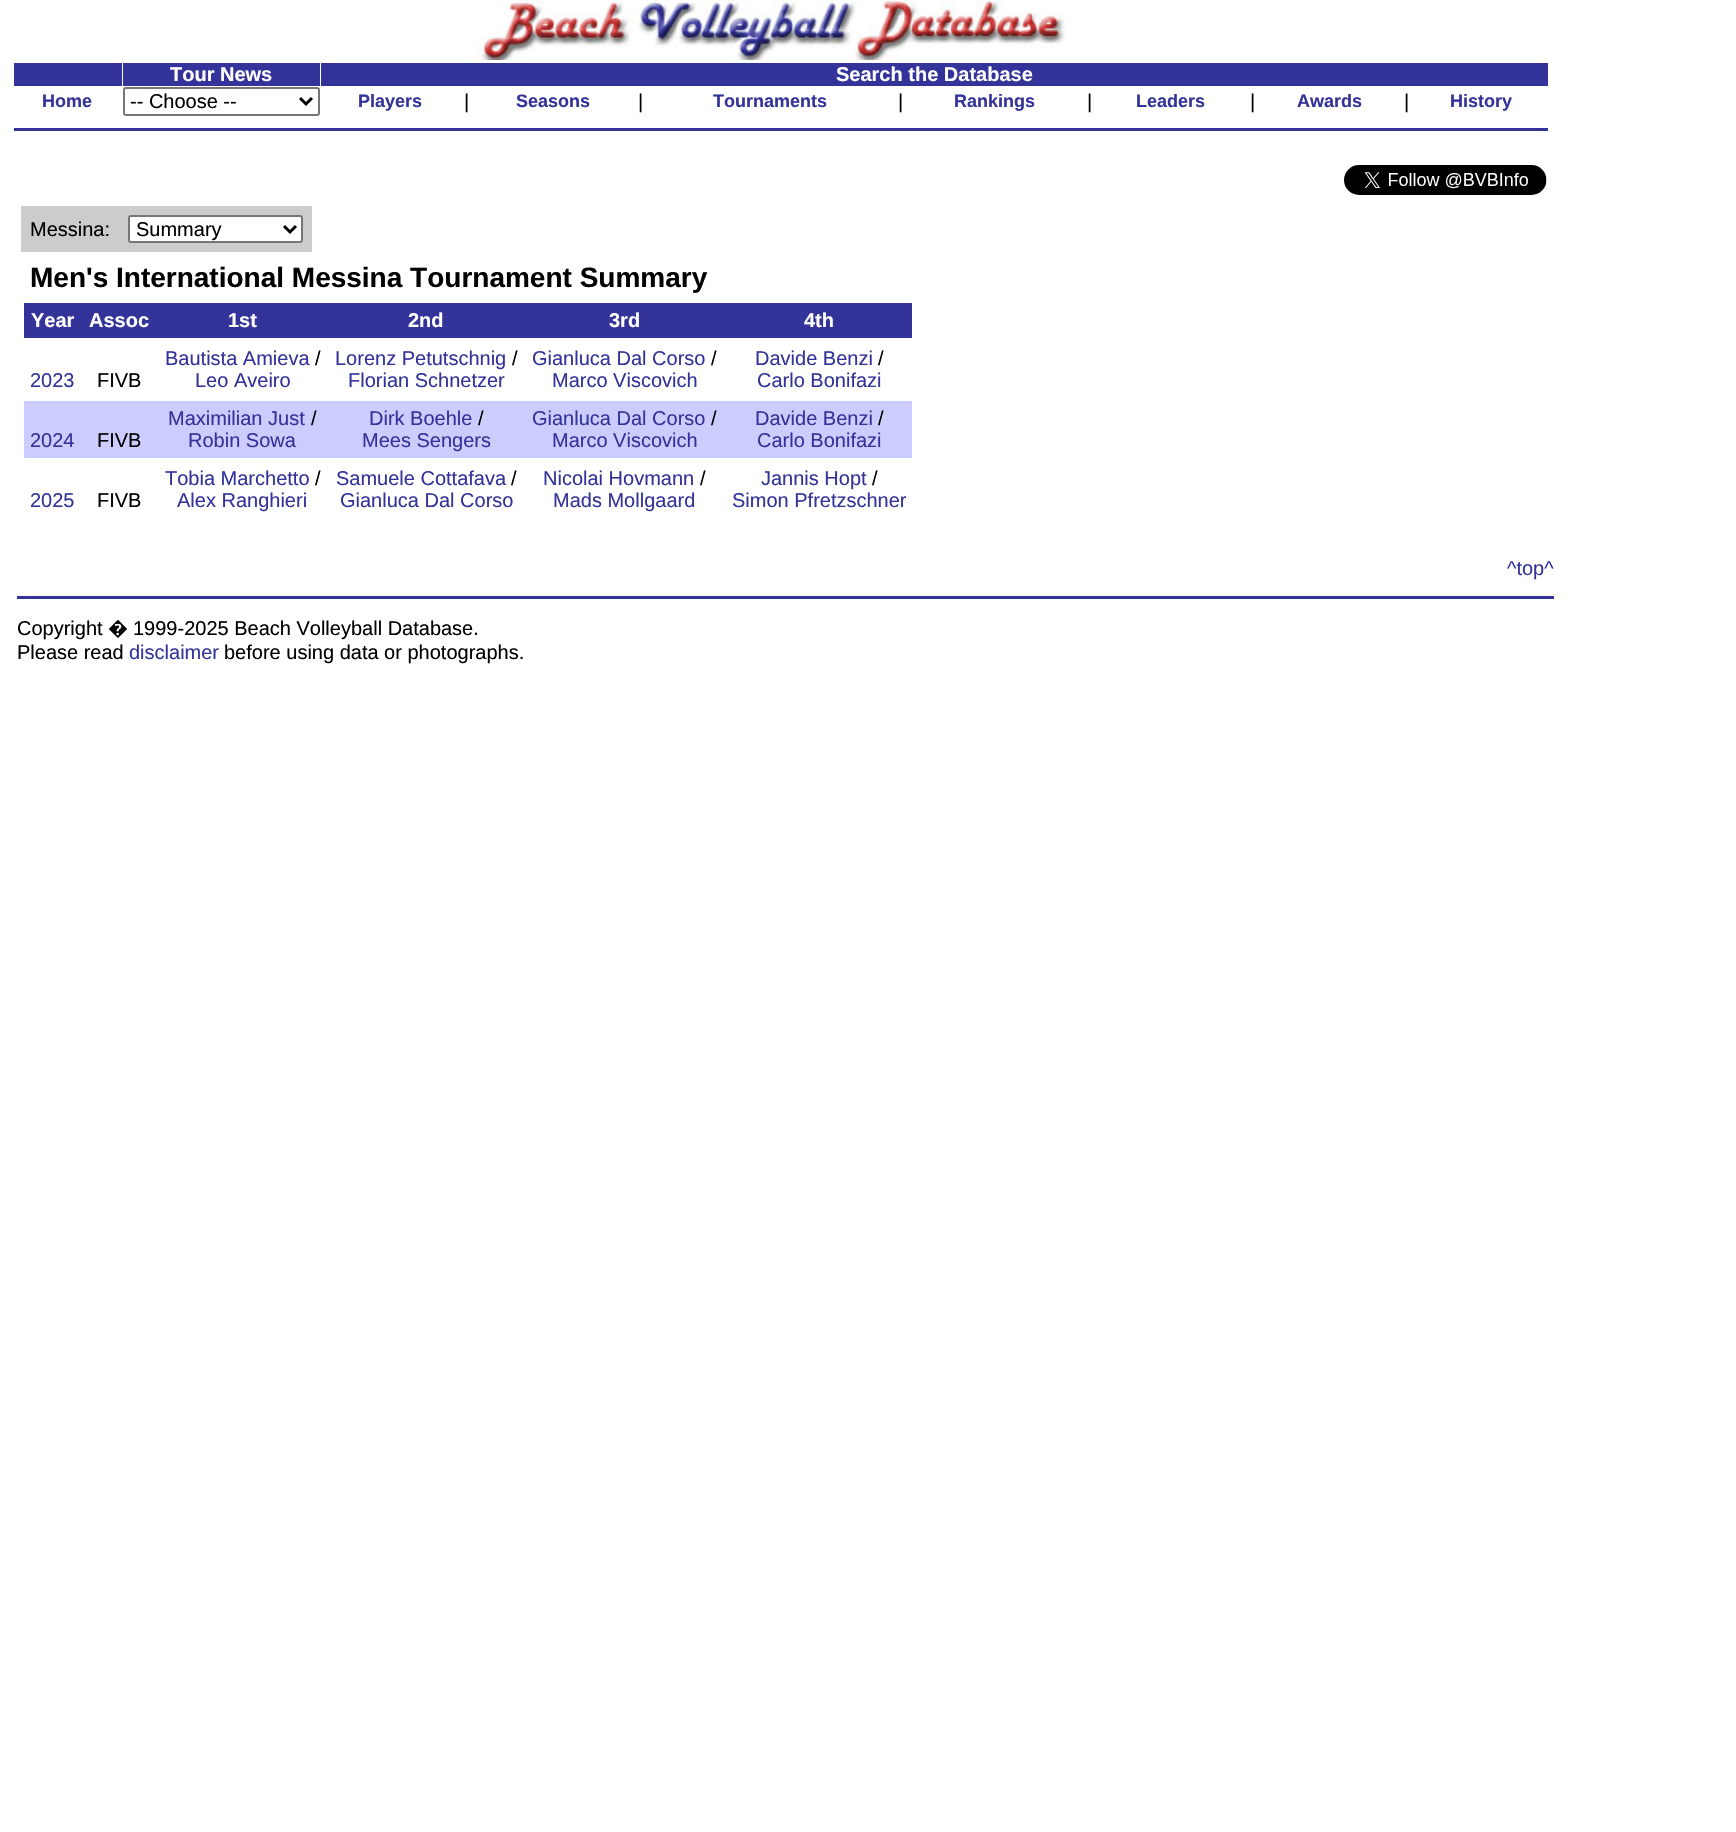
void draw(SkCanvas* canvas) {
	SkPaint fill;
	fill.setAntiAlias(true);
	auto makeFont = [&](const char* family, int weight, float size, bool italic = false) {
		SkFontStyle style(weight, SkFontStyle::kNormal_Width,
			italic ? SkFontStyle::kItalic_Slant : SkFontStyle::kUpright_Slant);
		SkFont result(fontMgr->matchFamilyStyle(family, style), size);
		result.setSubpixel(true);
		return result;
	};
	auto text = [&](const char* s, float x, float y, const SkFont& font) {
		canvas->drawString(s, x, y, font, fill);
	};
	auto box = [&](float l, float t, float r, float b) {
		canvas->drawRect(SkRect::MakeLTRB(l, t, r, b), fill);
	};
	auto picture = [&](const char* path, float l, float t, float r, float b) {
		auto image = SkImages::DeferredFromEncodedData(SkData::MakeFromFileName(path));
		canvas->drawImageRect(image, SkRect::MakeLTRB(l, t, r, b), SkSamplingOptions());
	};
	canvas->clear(0xFFFFFFFF);
	picture("image0.png", 474, 0, 1065, 60);
	fill.setColor(0xFF333399);
	box(14, 63, 122, 86);
	box(123, 63, 320, 86);
	box(321, 63, 1548, 86);
	fill.setStyle(SkPaint::kStroke_Style);
	fill.setStrokeWidth(2);
	fill.setColor(0xFF767676);
	canvas->drawRoundRect(SkRect::MakeLTRB(124, 88, 319, 115), 2, 2, fill);
	fill.setStrokeWidth(3);
	fill.setColor(0xFF000000);
	canvas->drawPath(SkPathBuilder().moveTo(300, 98).lineTo(306, 104).lineTo(312, 98).detach(), fill);
	fill.setStyle(SkPaint::kFill_Style);
	fill.setColor(0xFF333399);
	box(14, 128, 1548, 131);
	picture("image1.png", 1344, 165, 1547, 195);
	fill.setColor(0xFFCCCCCC);
	box(21, 206, 312, 252);
	fill.setColor(0xFFFFFFFF);
	canvas->drawRoundRect(SkRect::MakeLTRB(129, 216, 302, 242), 2, 2, fill);
	fill.setStyle(SkPaint::kStroke_Style);
	fill.setStrokeWidth(2);
	fill.setColor(0xFF767676);
	canvas->drawRoundRect(SkRect::MakeLTRB(129, 216, 302, 242), 2, 2, fill);
	fill.setStrokeWidth(3);
	fill.setColor(0xFF000000);
	canvas->drawPath(SkPathBuilder().moveTo(284, 226).lineTo(290, 232).lineTo(296, 226).detach(), fill);
	fill.setStyle(SkPaint::kFill_Style);
	fill.setColor(0xFF333399);
	box(24, 303, 912, 338);
	fill.setColor(0xFFCCCCFF);
	box(24, 401, 912, 458);
	fill.setColor(0xFF333399);
	box(17, 596, 1554, 599);
	auto font1 = makeFont("Liberation Sans", 700, 20);
	fill.setColor(0xFFFFFFFF);
	text("Tour News", 170, 81, font1);
	text("Search the Database", 836, 81, font1);
	auto font2 = makeFont("Liberation Sans", 700, 18);
	fill.setColor(0xFF333399);
	text("Home", 42, 107, font2);
	auto font3 = makeFont("Liberation Sans", 400, 20);
	fill.setColor(0xFF000000);
	text("-- Choose --", 130, 108, font3);
	fill.setColor(0xFF333399);
	text("Players", 358, 107, font2);
	fill.setColor(0xFF000000);
	text("|", 464, 108, font3);
	fill.setColor(0xFF333399);
	text("Seasons", 516, 107, font2);
	fill.setColor(0xFF000000);
	text("|", 638, 108, font3);
	fill.setColor(0xFF333399);
	text("Tournaments", 713, 107, font2);
	fill.setColor(0xFF000000);
	text("|", 898, 108, font3);
	fill.setColor(0xFF333399);
	text("Rankings", 954, 107, font2);
	fill.setColor(0xFF000000);
	text("|", 1087, 108, font3);
	fill.setColor(0xFF333399);
	text("Leaders", 1136, 107, font2);
	fill.setColor(0xFF000000);
	text("|", 1250, 108, font3);
	fill.setColor(0xFF333399);
	text("Awards", 1297, 107, font2);
	fill.setColor(0xFF000000);
	text("|", 1404, 108, font3);
	fill.setColor(0xFF333399);
	text("History", 1450, 107, font2);
	fill.setColor(0xFF000000);
	text("Messina:", 30, 236, font3);
	text("Summary", 136, 236, font3);
	auto font4 = makeFont("Liberation Sans", 700, 28);
	text("Men's International Messina Tournament Summary", 30, 287, font4);
	fill.setColor(0xFFFFFFFF);
	text("Year", 31, 327, font1);
	text("Assoc", 89, 327, font1);
	text("1st", 228, 327, font1);
	text("2nd", 408, 327, font1);
	text("3rd", 609, 327, font1);
	text("4th", 804, 327, font1);
	fill.setColor(0xFF333399);
	text("2023", 30, 387, font3);
	fill.setColor(0xFF000000);
	text("FIVB", 97, 387, font3);
	fill.setColor(0xFF333399);
	text("Bautista Amieva", 165, 365, font3);
	fill.setColor(0xFF000000);
	text("/", 315, 365, font3);
	fill.setColor(0xFF333399);
	text("Leo Aveiro", 195, 387, font3);
	text("Lorenz Petutschnig", 335, 365, font3);
	fill.setColor(0xFF000000);
	text("/", 512, 365, font3);
	fill.setColor(0xFF333399);
	text("Florian Schnetzer", 348, 387, font3);
	text("Gianluca Dal Corso", 532, 365, font3);
	fill.setColor(0xFF000000);
	text("/", 711, 365, font3);
	fill.setColor(0xFF333399);
	text("Marco Viscovich", 552, 387, font3);
	text("Davide Benzi", 755, 365, font3);
	fill.setColor(0xFF000000);
	text("/", 878, 365, font3);
	fill.setColor(0xFF333399);
	text("Carlo Bonifazi", 757, 387, font3);
	text("2024", 30, 447, font3);
	fill.setColor(0xFF000000);
	text("FIVB", 97, 447, font3);
	fill.setColor(0xFF333399);
	text("Maximilian Just", 168, 425, font3);
	fill.setColor(0xFF000000);
	text("/", 311, 425, font3);
	fill.setColor(0xFF333399);
	text("Robin Sowa", 188, 447, font3);
	text("Dirk Boehle", 369, 425, font3);
	fill.setColor(0xFF000000);
	text("/", 478, 425, font3);
	fill.setColor(0xFF333399);
	text("Mees Sengers", 362, 447, font3);
	text("Gianluca Dal Corso", 532, 425, font3);
	fill.setColor(0xFF000000);
	text("/", 711, 425, font3);
	fill.setColor(0xFF333399);
	text("Marco Viscovich", 552, 447, font3);
	text("Davide Benzi", 755, 425, font3);
	fill.setColor(0xFF000000);
	text("/", 878, 425, font3);
	fill.setColor(0xFF333399);
	text("Carlo Bonifazi", 757, 447, font3);
	text("2025", 30, 507, font3);
	fill.setColor(0xFF000000);
	text("FIVB", 97, 507, font3);
	fill.setColor(0xFF333399);
	text("Tobia Marchetto", 165, 485, font3);
	fill.setColor(0xFF000000);
	text("/", 315, 485, font3);
	fill.setColor(0xFF333399);
	text("Alex Ranghieri", 177, 507, font3);
	text("Samuele Cottafava", 336, 485, font3);
	fill.setColor(0xFF000000);
	text("/", 511, 485, font3);
	fill.setColor(0xFF333399);
	text("Gianluca Dal Corso", 340, 507, font3);
	text("Nicolai Hovmann", 543, 485, font3);
	fill.setColor(0xFF000000);
	text("/", 700, 485, font3);
	fill.setColor(0xFF333399);
	text("Mads Mollgaard", 553, 507, font3);
	text("Jannis Hopt", 761, 485, font3);
	fill.setColor(0xFF000000);
	text("/", 872, 485, font3);
	fill.setColor(0xFF333399);
	text("Simon Pfretzschner", 732, 507, font3);
	text("^top^", 1507, 575, font3);
	fill.setColor(0xFF000000);
	text("Copyright", 17, 635, font3);
	auto font5 = makeFont("Noto Sans", 400, 20);
	text("�", 108, 635, font5);
	text("1999-2025 Beach Volleyball Database.", 133, 635, font3);
	text("Please read", 17, 659, font3);
	fill.setColor(0xFF333399);
	text("disclaimer", 129, 659, font3);
	fill.setColor(0xFF000000);
	text("before using data or photographs.", 224, 659, font3);
}
